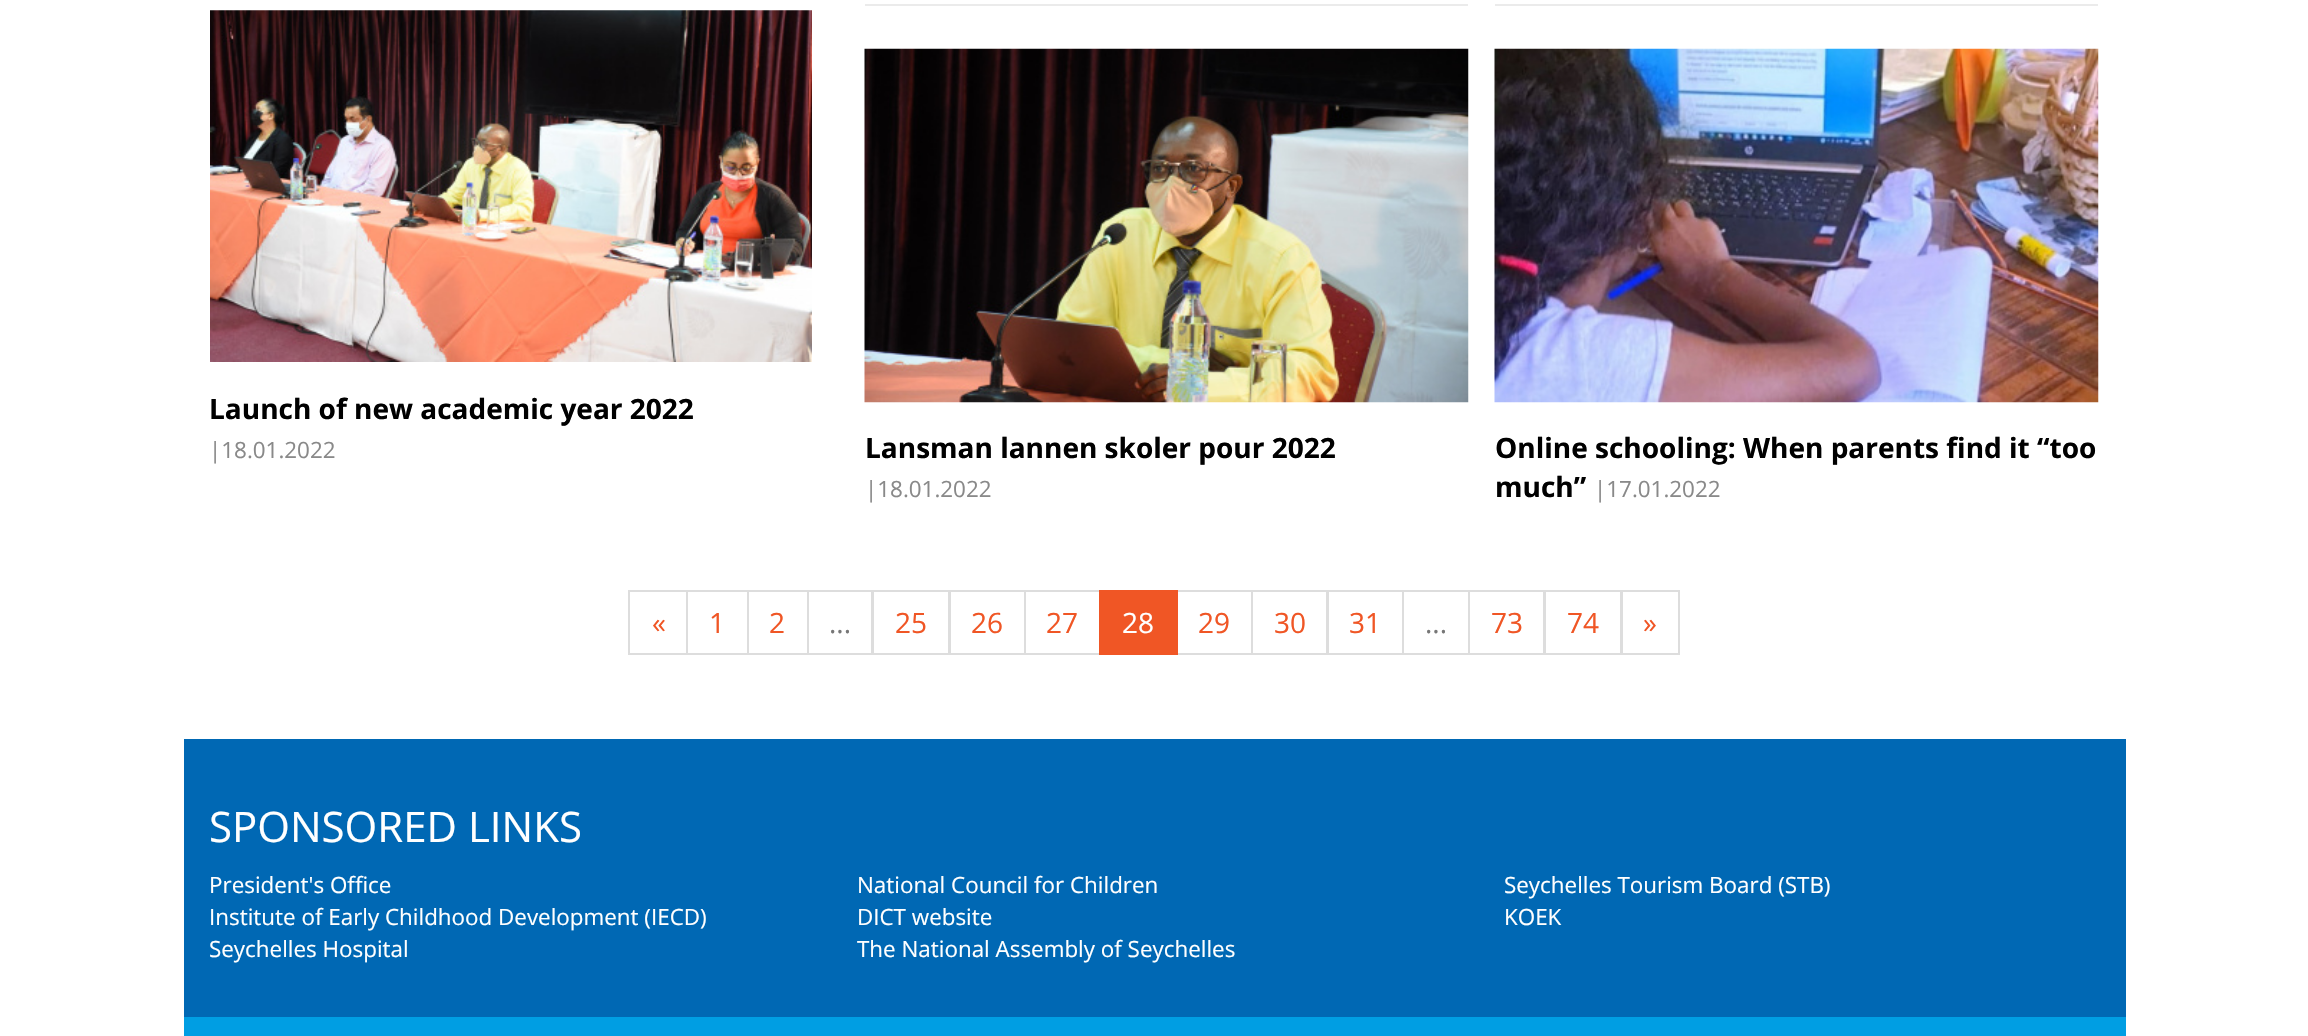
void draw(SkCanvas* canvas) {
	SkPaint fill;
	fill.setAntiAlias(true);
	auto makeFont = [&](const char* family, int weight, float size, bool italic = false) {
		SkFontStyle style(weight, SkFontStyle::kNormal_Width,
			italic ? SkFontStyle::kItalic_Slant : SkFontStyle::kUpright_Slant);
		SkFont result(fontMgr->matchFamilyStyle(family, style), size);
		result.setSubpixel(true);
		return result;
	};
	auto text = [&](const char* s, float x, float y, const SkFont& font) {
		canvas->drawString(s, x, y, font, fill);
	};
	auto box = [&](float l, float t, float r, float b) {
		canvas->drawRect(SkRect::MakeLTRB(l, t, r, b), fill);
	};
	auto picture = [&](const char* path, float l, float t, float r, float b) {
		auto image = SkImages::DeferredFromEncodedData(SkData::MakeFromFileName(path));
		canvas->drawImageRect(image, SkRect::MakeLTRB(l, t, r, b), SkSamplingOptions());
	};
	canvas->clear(0xFFFFFFFF);
	picture("image0.png", 210, 10, 812, 362);
	fill.setColor(0xFFEBEBEB);
	box(865, 4, 1468, 6);
	picture("image1.png", 864, 48, 1469, 403);
	box(1495, 4, 2098, 6);
	picture("image2.png", 1494, 48, 2099, 403);
	fill.setStyle(SkPaint::kStroke_Style);
	fill.setStrokeWidth(2);
	fill.setColor(0xFFDDDDDD);
	canvas->drawRect(SkRect::MakeLTRB(629, 591, 687, 654), fill);
	canvas->drawRect(SkRect::MakeLTRB(687, 591, 748, 654), fill);
	canvas->drawRect(SkRect::MakeLTRB(748, 591, 808, 654), fill);
	canvas->drawRect(SkRect::MakeLTRB(808, 591, 872, 654), fill);
	canvas->drawRect(SkRect::MakeLTRB(873, 591, 949, 654), fill);
	canvas->drawRect(SkRect::MakeLTRB(950, 591, 1025, 654), fill);
	canvas->drawRect(SkRect::MakeLTRB(1025, 591, 1100, 654), fill);
	canvas->drawRect(SkRect::MakeLTRB(1177, 591, 1252, 654), fill);
	fill.setStyle(SkPaint::kFill_Style);
	fill.setColor(0xFFF05625);
	box(1099, 590, 1178, 655);
	fill.setStyle(SkPaint::kStroke_Style);
	fill.setColor(0xFFDDDDDD);
	canvas->drawRect(SkRect::MakeLTRB(1252, 591, 1327, 654), fill);
	canvas->drawRect(SkRect::MakeLTRB(1328, 591, 1403, 654), fill);
	canvas->drawRect(SkRect::MakeLTRB(1403, 591, 1469, 654), fill);
	canvas->drawRect(SkRect::MakeLTRB(1469, 591, 1544, 654), fill);
	canvas->drawRect(SkRect::MakeLTRB(1545, 591, 1621, 654), fill);
	canvas->drawRect(SkRect::MakeLTRB(1622, 591, 1679, 654), fill);
	fill.setStyle(SkPaint::kFill_Style);
	fill.setColor(0xFF0068B4);
	box(184, 739, 2126, 1017);
	fill.setColor(0xFF009EE3);
	box(184, 1017, 2126, 1036);
	auto font1 = makeFont("Open Sans", 700, 28);
	fill.setColor(0xFF000000);
	text("Launch of new academic year 2022", 209, 419, font1);
	auto font2 = makeFont("Open Sans", 400, 22.4f);
	fill.setColor(0xFF898989);
	text("|18.01.2022", 209, 458, font2);
	fill.setColor(0xFF000000);
	text("Lansman lannen skoler pour 2022", 865, 458, font1);
	fill.setColor(0xFF898989);
	text("|18.01.2022", 865, 497, font2);
	fill.setColor(0xFF000000);
	text("Online schooling: When parents find it “too", 1495, 458, font1);
	text("much”", 1495, 497, font1);
	fill.setColor(0xFF898989);
	text("|17.01.2022", 1594, 497, font2);
	auto font3 = makeFont("Open Sans", 400, 28);
	fill.setColor(0xFFF05625);
	text("«", 652, 633, font3);
	text("1", 709, 633, font3);
	text("2", 769, 633, font3);
	fill.setColor(0xFF777777);
	text("...", 829, 633, font3);
	fill.setColor(0xFFF05625);
	text("25", 895, 633, font3);
	text("26", 971, 633, font3);
	text("27", 1046, 633, font3);
	fill.setColor(0xFFFFFFFF);
	text("28", 1122, 633, font3);
	fill.setColor(0xFFF05625);
	text("29", 1198, 633, font3);
	text("30", 1274, 633, font3);
	text("31", 1349, 633, font3);
	fill.setColor(0xFF777777);
	text("...", 1425, 633, font3);
	fill.setColor(0xFFF05625);
	text("73", 1491, 633, font3);
	text("74", 1567, 633, font3);
	text("»", 1643, 633, font3);
	auto font4 = makeFont("Open Sans", 400, 42);
	fill.setColor(0xFFFFFFFF);
	text("SPONSORED LINKS", 209, 842, font4);
	text("President's Office", 209, 893, font2);
	text("Institute of Early Childhood Development (IECD)", 209, 925, font2);
	text("Seychelles Hospital", 209, 957, font2);
	text("National Council for Children", 857, 893, font2);
	text("DICT website", 857, 925, font2);
	text("The National Assembly of Seychelles", 857, 957, font2);
	text("Seychelles Tourism Board (STB)", 1504, 893, font2);
	text("KOEK", 1504, 925, font2);
}
